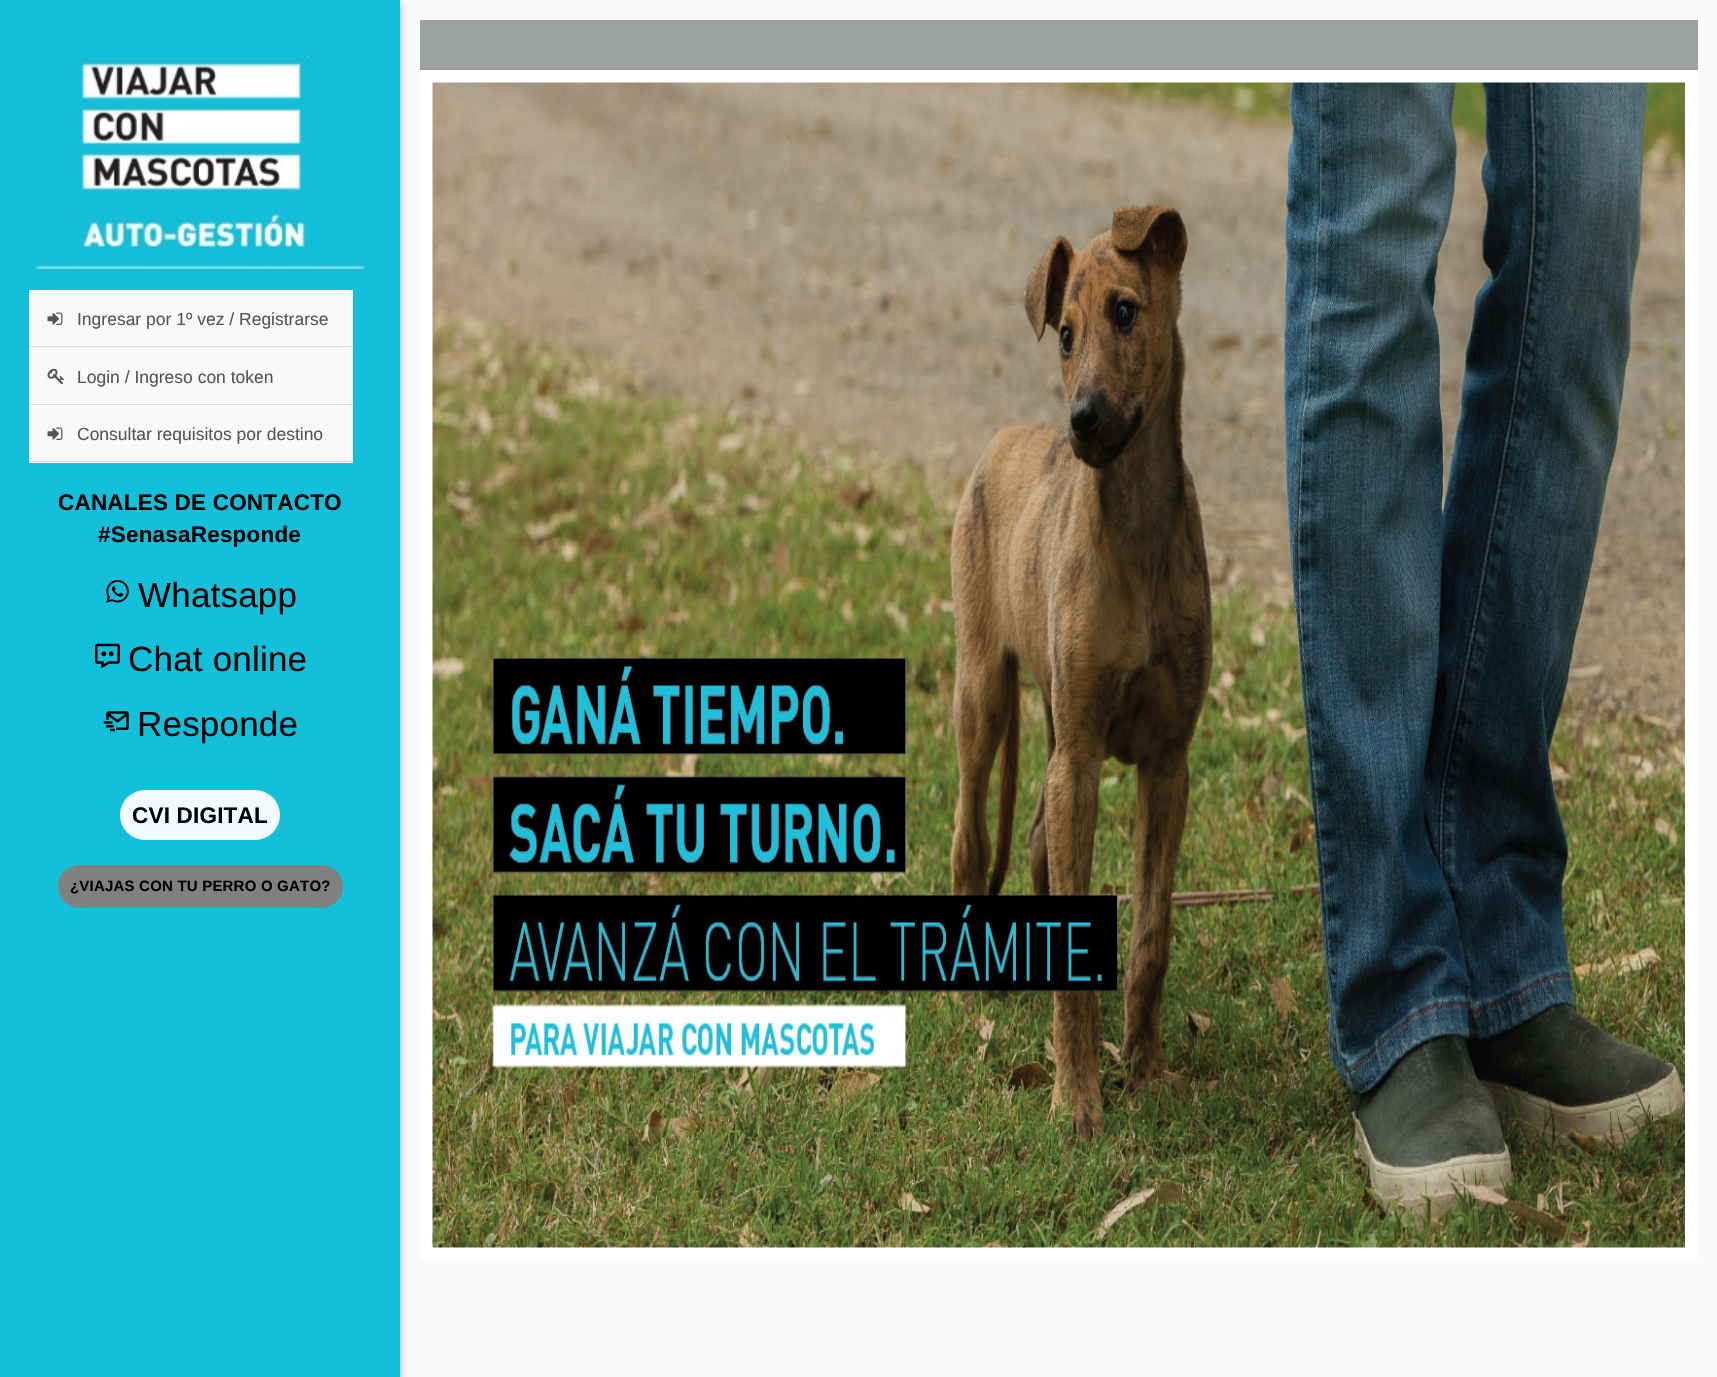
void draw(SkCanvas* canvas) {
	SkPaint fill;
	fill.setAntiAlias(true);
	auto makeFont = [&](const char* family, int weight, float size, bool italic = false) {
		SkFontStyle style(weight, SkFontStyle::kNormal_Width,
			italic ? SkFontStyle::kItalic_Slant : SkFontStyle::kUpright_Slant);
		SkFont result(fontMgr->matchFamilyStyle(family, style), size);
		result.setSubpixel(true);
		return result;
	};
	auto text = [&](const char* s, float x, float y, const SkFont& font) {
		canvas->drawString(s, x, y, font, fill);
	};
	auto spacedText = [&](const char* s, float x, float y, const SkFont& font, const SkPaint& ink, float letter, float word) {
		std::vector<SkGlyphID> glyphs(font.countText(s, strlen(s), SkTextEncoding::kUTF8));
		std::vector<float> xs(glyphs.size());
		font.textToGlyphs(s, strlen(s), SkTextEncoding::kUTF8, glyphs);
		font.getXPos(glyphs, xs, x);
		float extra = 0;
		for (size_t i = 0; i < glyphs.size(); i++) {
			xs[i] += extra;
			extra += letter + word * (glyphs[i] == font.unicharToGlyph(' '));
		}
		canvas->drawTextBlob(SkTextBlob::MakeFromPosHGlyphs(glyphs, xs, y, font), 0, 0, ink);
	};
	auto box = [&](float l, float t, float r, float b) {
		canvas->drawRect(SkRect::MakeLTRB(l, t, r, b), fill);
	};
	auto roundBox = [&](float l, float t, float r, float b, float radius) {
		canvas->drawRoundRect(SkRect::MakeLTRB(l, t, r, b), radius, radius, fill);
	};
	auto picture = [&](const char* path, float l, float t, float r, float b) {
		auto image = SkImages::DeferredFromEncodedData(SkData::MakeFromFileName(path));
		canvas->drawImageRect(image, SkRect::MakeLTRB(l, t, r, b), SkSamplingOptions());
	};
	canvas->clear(0xFFFAFAFA);
	fill.setColor(0x1F000000);
	fill.setMaskFilter(SkMaskFilter::MakeBlur(kNormal_SkBlurStyle, 6));
	canvas->drawRect(SkRect::MakeLTRB(0, 1, 400, 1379), fill);
	fill.setMaskFilter(nullptr);
	fill.setColor(0x24000000);
	fill.setMaskFilter(SkMaskFilter::MakeBlur(kNormal_SkBlurStyle, 3));
	canvas->drawRect(SkRect::MakeLTRB(0, 5, 400, 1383), fill);
	fill.setMaskFilter(nullptr);
	fill.setColor(0x33000000);
	fill.setMaskFilter(SkMaskFilter::MakeBlur(kNormal_SkBlurStyle, 2.5f));
	canvas->drawRect(SkRect::MakeLTRB(1, 4, 399, 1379), fill);
	fill.setMaskFilter(nullptr);
	fill.setColor(0xFF14BFDA);
	box(0, 0, 400, 1377);
	picture("image0.png", 32, 52, 373, 272);
	fill.setColor(0xFFF9F9F9);
	box(29, 291, 353, 348);
	fill.setColor(0xFFFFFFFF);
	box(29, 290, 353, 291);
	fill.setColor(0xFFDBDBDB);
	box(29, 346, 353, 347);
	picture("image1.png", 47, 312, 63, 325);
	fill.setColor(0xFFF9F9F9);
	box(29, 349, 353, 404);
	fill.setColor(0xFFFFFFFF);
	box(29, 348, 353, 349);
	fill.setColor(0xFFDBDBDB);
	box(29, 404, 353, 405);
	picture("image2.png", 47, 368, 64, 385);
	fill.setColor(0xFFF9F9F9);
	box(29, 406, 353, 463);
	fill.setColor(0xFFFFFFFF);
	box(29, 405, 353, 406);
	fill.setColor(0xFFDBDBDB);
	box(29, 461, 353, 462);
	picture("image1.png", 47, 427, 63, 440);
	picture("image3.png", 106, 580, 129, 603);
	picture("image4.png", 95, 643, 120, 669);
	picture("image5.png", 103, 711, 129, 732);
	fill.setColor(0xFFF3FAFF);
	roundBox(120, 790, 280, 840, 25);
	fill.setColor(0xFF808080);
	roundBox(58, 865, 343, 908, 21.5f);
	fill.setColor(0xFF9DA19F);
	box(420, 20, 1698, 69);
	fill.setColor(0xFF999999);
	box(420, 69, 1698, 70);
	fill.setColor(0xFFFFFFFF);
	box(420, 70, 1698, 1260);
	picture("image6.png", 432, 82, 1685, 1248);
	auto font1 = makeFont("Liberation Sans", 400, 17.5f);
	fill.setColor(0xFF555555);
	text("Ingresar por 1º vez / Registrarse", 77, 325, font1);
	text("Login / Ingreso con token", 77, 383, font1);
	text("Consultar requisitos por destino", 77, 440, font1);
	auto font2 = makeFont("Liberation Sans", 700, 22.5f);
	fill.setColor(0xFF000000);
	spacedText("CANALES DE CONTACTO", 58, 510, font2, fill, 0.2f, 0);
	spacedText("#SenasaResponde", 98, 542, font2, fill, 0.2f, 0);
	auto font3 = makeFont("Liberation Sans", 400, 35);
	spacedText("Whatsapp", 138, 607, font3, fill, 0.2f, 0);
	spacedText("Chat online", 128, 671, font3, fill, 0.2f, 0);
	spacedText("Responde", 137, 736, font3, fill, 0.2f, 0);
	spacedText("CVI DIGITAL", 132, 823, font2, fill, 0.2f, 0);
	auto font4 = makeFont("Liberation Sans", 700, 15);
	spacedText("¿VIAJAS CON TU PERRO O GATO?", 70, 891, font4, fill, 0.2f, 0);
}
